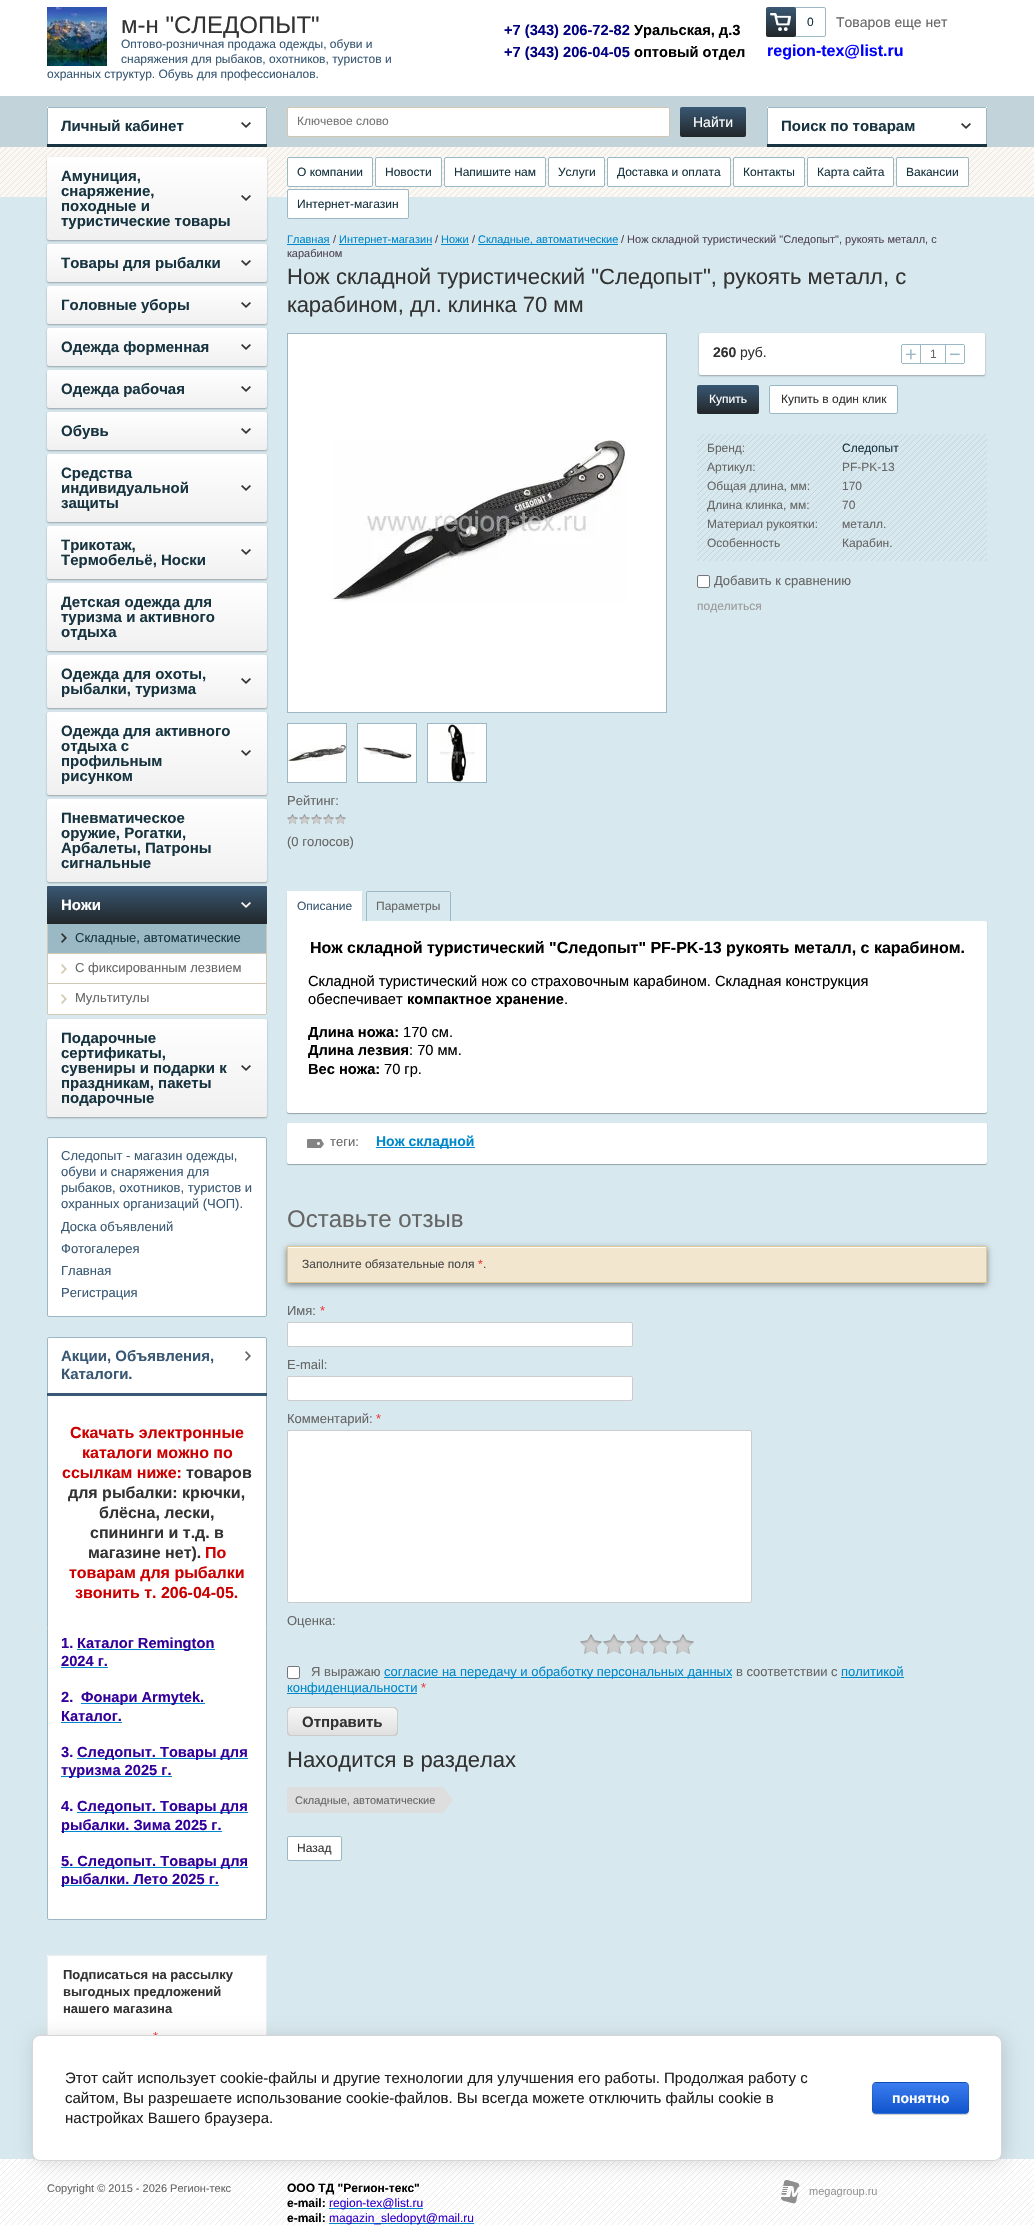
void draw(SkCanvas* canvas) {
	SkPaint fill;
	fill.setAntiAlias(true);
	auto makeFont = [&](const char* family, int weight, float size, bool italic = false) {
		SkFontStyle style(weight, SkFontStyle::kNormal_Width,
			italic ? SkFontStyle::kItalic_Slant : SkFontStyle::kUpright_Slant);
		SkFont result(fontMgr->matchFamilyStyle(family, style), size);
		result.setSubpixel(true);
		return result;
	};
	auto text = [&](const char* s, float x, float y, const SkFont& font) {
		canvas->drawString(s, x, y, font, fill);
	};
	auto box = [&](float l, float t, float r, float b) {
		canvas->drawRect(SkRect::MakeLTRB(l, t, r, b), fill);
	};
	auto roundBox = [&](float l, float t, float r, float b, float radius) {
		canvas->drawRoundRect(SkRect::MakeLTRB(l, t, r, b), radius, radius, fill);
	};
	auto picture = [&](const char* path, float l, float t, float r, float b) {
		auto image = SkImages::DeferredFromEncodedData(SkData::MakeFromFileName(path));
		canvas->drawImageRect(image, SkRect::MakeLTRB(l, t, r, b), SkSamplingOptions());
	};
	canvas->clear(0xFFD7E8EE);
	fill.setColor(0xFFFFFFFF);
	box(0, 0, 1034, 96);
	picture("image0.png", 47, 7, 107, 66);
	fill.setStyle(SkPaint::kStroke_Style);
	fill.setStrokeWidth(1);
	fill.setColor(0xFF9BB9C4);
	canvas->drawRoundRect(SkRect::MakeLTRB(794.5f, 7.5f, 825.5f, 36.5f), 1.5f, 1.5f, fill);
	fill.setStyle(SkPaint::kFill_Style);
	{
		const SkColor colors[] = {0xFF395873, 0xFF222629};
		const float stops[] = {0, 1};
		const SkPoint ends[] = {{781, 7}, {781, 37}};
		fill.setShader(SkGradientShader::MakeLinear(ends, colors, stops, 2, SkTileMode::kClamp));
		fill.setAlpha(255);
	}
	roundBox(766, 7, 796, 37, 2);
	picture("image1.png", 770, 13, 791, 31);
	fill.setShader(nullptr);
	fill.setColor(0xFFC2D3DA);
	box(0, 96, 1034, 147);
	fill.setColor(0xFFFFFFFF);
	box(47, 107, 267, 144);
	fill.setColor(0xFF173440);
	box(47, 144, 267, 147);
	fill.setColor(0xFF9BB9C4);
	box(48, 107, 266, 108);
	box(266, 108, 267, 144);
	box(47, 108, 48, 144);
	picture("image2.png", 241, 122, 251, 128);
	fill.setColor(0xFFFFFFFF);
	canvas->drawRoundRect(SkRect::MakeLTRB(287.5f, 107.5f, 669.5f, 136.5f), 1.5f, 1.5f, fill);
	fill.setStyle(SkPaint::kStroke_Style);
	fill.setColor(0xFFD3C7B3);
	canvas->drawRoundRect(SkRect::MakeLTRB(287.5f, 107.5f, 669.5f, 136.5f), 1.5f, 1.5f, fill);
	fill.setStyle(SkPaint::kFill_Style);
	{
		const SkColor colors[] = {0xFF395873, 0xFF222629};
		const float stops[] = {0, 1};
		const SkPoint ends[] = {{713, 107}, {713, 137}};
		fill.setShader(SkGradientShader::MakeLinear(ends, colors, stops, 2, SkTileMode::kClamp));
		fill.setAlpha(255);
	}
	roundBox(680, 107, 746, 137, 2);
	fill.setShader(nullptr);
	fill.setColor(0xFFFFFFFF);
	box(767, 107, 987, 144);
	fill.setColor(0xFF173440);
	box(767, 144, 987, 147);
	fill.setColor(0xFF9BB9C4);
	box(768, 107, 986, 108);
	box(986, 108, 987, 144);
	box(767, 108, 768, 144);
	picture("image2.png", 961, 123, 971, 129);
	picture("image3.png", 0, 147, 1034, 197);
	fill.setColor(0x4D000000);
	fill.setMaskFilter(SkMaskFilter::MakeBlur(kNormal_SkBlurStyle, 1));
	canvas->drawRoundRect(SkRect::MakeLTRB(47, 158, 267, 241), 2, 2, fill);
	fill.setMaskFilter(nullptr);
	{
		const SkColor colors[] = {0xFFFFFFFF, 0xFFF0F0F0};
		const float stops[] = {0, 1};
		const SkPoint ends[] = {{157, 157}, {157, 240}};
		fill.setShader(SkGradientShader::MakeLinear(ends, colors, stops, 2, SkTileMode::kClamp));
		fill.setAlpha(255);
	}
	roundBox(47, 157, 267, 240, 2);
	picture("image4.png", 241, 195, 251, 201);
	fill.setShader(nullptr);
	fill.setColor(0x4D000000);
	fill.setMaskFilter(SkMaskFilter::MakeBlur(kNormal_SkBlurStyle, 1));
	canvas->drawRoundRect(SkRect::MakeLTRB(47, 245, 267, 283), 2, 2, fill);
	fill.setMaskFilter(nullptr);
	{
		const SkColor colors[] = {0xFFFFFFFF, 0xFFF0F0F0};
		const float stops[] = {0, 1};
		const SkPoint ends[] = {{157, 244}, {157, 282}};
		fill.setShader(SkGradientShader::MakeLinear(ends, colors, stops, 2, SkTileMode::kClamp));
		fill.setAlpha(255);
	}
	roundBox(47, 244, 267, 282, 2);
	picture("image5.png", 241, 260, 251, 266);
	fill.setShader(nullptr);
	fill.setColor(0x4D000000);
	fill.setMaskFilter(SkMaskFilter::MakeBlur(kNormal_SkBlurStyle, 1));
	canvas->drawRoundRect(SkRect::MakeLTRB(47, 287, 267, 325), 2, 2, fill);
	fill.setMaskFilter(nullptr);
	{
		const SkColor colors[] = {0xFFFFFFFF, 0xFFF0F0F0};
		const float stops[] = {0, 1};
		const SkPoint ends[] = {{157, 286}, {157, 324}};
		fill.setShader(SkGradientShader::MakeLinear(ends, colors, stops, 2, SkTileMode::kClamp));
		fill.setAlpha(255);
	}
	roundBox(47, 286, 267, 324, 2);
	picture("image5.png", 241, 302, 251, 308);
	fill.setShader(nullptr);
	fill.setColor(0x4D000000);
	fill.setMaskFilter(SkMaskFilter::MakeBlur(kNormal_SkBlurStyle, 1));
	canvas->drawRoundRect(SkRect::MakeLTRB(47, 329, 267, 367), 2, 2, fill);
	fill.setMaskFilter(nullptr);
	{
		const SkColor colors[] = {0xFFFFFFFF, 0xFFF0F0F0};
		const float stops[] = {0, 1};
		const SkPoint ends[] = {{157, 328}, {157, 366}};
		fill.setShader(SkGradientShader::MakeLinear(ends, colors, stops, 2, SkTileMode::kClamp));
		fill.setAlpha(255);
	}
	roundBox(47, 328, 267, 366, 2);
	picture("image5.png", 241, 344, 251, 350);
	fill.setShader(nullptr);
	fill.setColor(0x4D000000);
	fill.setMaskFilter(SkMaskFilter::MakeBlur(kNormal_SkBlurStyle, 1));
	canvas->drawRoundRect(SkRect::MakeLTRB(47, 371, 267, 409), 2, 2, fill);
	fill.setMaskFilter(nullptr);
	{
		const SkColor colors[] = {0xFFFFFFFF, 0xFFF0F0F0};
		const float stops[] = {0, 1};
		const SkPoint ends[] = {{157, 370}, {157, 408}};
		fill.setShader(SkGradientShader::MakeLinear(ends, colors, stops, 2, SkTileMode::kClamp));
		fill.setAlpha(255);
	}
	roundBox(47, 370, 267, 408, 2);
	picture("image5.png", 241, 386, 251, 392);
	fill.setShader(nullptr);
	fill.setColor(0x4D000000);
	fill.setMaskFilter(SkMaskFilter::MakeBlur(kNormal_SkBlurStyle, 1));
	canvas->drawRoundRect(SkRect::MakeLTRB(47, 413, 267, 451), 2, 2, fill);
	fill.setMaskFilter(nullptr);
	{
		const SkColor colors[] = {0xFFFFFFFF, 0xFFF0F0F0};
		const float stops[] = {0, 1};
		const SkPoint ends[] = {{157, 412}, {157, 450}};
		fill.setShader(SkGradientShader::MakeLinear(ends, colors, stops, 2, SkTileMode::kClamp));
		fill.setAlpha(255);
	}
	roundBox(47, 412, 267, 450, 2);
	picture("image5.png", 241, 428, 251, 434);
	fill.setShader(nullptr);
	fill.setColor(0x4D000000);
	fill.setMaskFilter(SkMaskFilter::MakeBlur(kNormal_SkBlurStyle, 1));
	canvas->drawRoundRect(SkRect::MakeLTRB(47, 455, 267, 523), 2, 2, fill);
	fill.setMaskFilter(nullptr);
	{
		const SkColor colors[] = {0xFFFFFFFF, 0xFFF0F0F0};
		const float stops[] = {0, 1};
		const SkPoint ends[] = {{157, 454}, {157, 522}};
		fill.setShader(SkGradientShader::MakeLinear(ends, colors, stops, 2, SkTileMode::kClamp));
		fill.setAlpha(255);
	}
	roundBox(47, 454, 267, 522, 2);
	picture("image5.png", 241, 485, 251, 491);
	fill.setShader(nullptr);
	fill.setColor(0x4D000000);
	fill.setMaskFilter(SkMaskFilter::MakeBlur(kNormal_SkBlurStyle, 1));
	canvas->drawRoundRect(SkRect::MakeLTRB(47, 527, 267, 580), 2, 2, fill);
	fill.setMaskFilter(nullptr);
	{
		const SkColor colors[] = {0xFFFFFFFF, 0xFFF0F0F0};
		const float stops[] = {0, 1};
		const SkPoint ends[] = {{157, 526}, {157, 579}};
		fill.setShader(SkGradientShader::MakeLinear(ends, colors, stops, 2, SkTileMode::kClamp));
		fill.setAlpha(255);
	}
	roundBox(47, 526, 267, 579, 2);
	picture("image4.png", 241, 549, 251, 555);
	fill.setShader(nullptr);
	fill.setColor(0x4D000000);
	fill.setMaskFilter(SkMaskFilter::MakeBlur(kNormal_SkBlurStyle, 1));
	canvas->drawRoundRect(SkRect::MakeLTRB(47, 584, 267, 652), 2, 2, fill);
	fill.setMaskFilter(nullptr);
	{
		const SkColor colors[] = {0xFFFFFFFF, 0xFFF0F0F0};
		const float stops[] = {0, 1};
		const SkPoint ends[] = {{157, 583}, {157, 651}};
		fill.setShader(SkGradientShader::MakeLinear(ends, colors, stops, 2, SkTileMode::kClamp));
		fill.setAlpha(255);
	}
	roundBox(47, 583, 267, 651, 2);
	fill.setShader(nullptr);
	fill.setColor(0x4D000000);
	fill.setMaskFilter(SkMaskFilter::MakeBlur(kNormal_SkBlurStyle, 1));
	canvas->drawRoundRect(SkRect::MakeLTRB(47, 656, 267, 709), 2, 2, fill);
	fill.setMaskFilter(nullptr);
	{
		const SkColor colors[] = {0xFFFFFFFF, 0xFFF0F0F0};
		const float stops[] = {0, 1};
		const SkPoint ends[] = {{157, 655}, {157, 708}};
		fill.setShader(SkGradientShader::MakeLinear(ends, colors, stops, 2, SkTileMode::kClamp));
		fill.setAlpha(255);
	}
	roundBox(47, 655, 267, 708, 2);
	picture("image4.png", 241, 678, 251, 684);
	fill.setShader(nullptr);
	fill.setColor(0x4D000000);
	fill.setMaskFilter(SkMaskFilter::MakeBlur(kNormal_SkBlurStyle, 1));
	canvas->drawRoundRect(SkRect::MakeLTRB(47, 713, 267, 796), 2, 2, fill);
	fill.setMaskFilter(nullptr);
	{
		const SkColor colors[] = {0xFFFFFFFF, 0xFFF0F0F0};
		const float stops[] = {0, 1};
		const SkPoint ends[] = {{157, 712}, {157, 795}};
		fill.setShader(SkGradientShader::MakeLinear(ends, colors, stops, 2, SkTileMode::kClamp));
		fill.setAlpha(255);
	}
	roundBox(47, 712, 267, 795, 2);
	picture("image4.png", 241, 750, 251, 756);
	fill.setShader(nullptr);
	fill.setColor(0x4D000000);
	fill.setMaskFilter(SkMaskFilter::MakeBlur(kNormal_SkBlurStyle, 1));
	canvas->drawRoundRect(SkRect::MakeLTRB(47, 800, 267, 883), 2, 2, fill);
	fill.setMaskFilter(nullptr);
	{
		const SkColor colors[] = {0xFFFFFFFF, 0xFFF0F0F0};
		const float stops[] = {0, 1};
		const SkPoint ends[] = {{157, 799}, {157, 882}};
		fill.setShader(SkGradientShader::MakeLinear(ends, colors, stops, 2, SkTileMode::kClamp));
		fill.setAlpha(255);
	}
	roundBox(47, 799, 267, 882, 2);
	{
		const SkColor colors[] = {0xFF395873, 0xFF222629};
		const float stops[] = {0, 1};
		const SkPoint ends[] = {{157, 886}, {157, 924}};
		fill.setShader(SkGradientShader::MakeLinear(ends, colors, stops, 2, SkTileMode::kClamp));
		fill.setAlpha(255);
	}
	canvas->drawPath(SkPathBuilder().moveTo(48, 886).lineTo(266, 886).cubicTo(266.5f, 886, 267, 886.5f, 267, 887).lineTo(267, 924).lineTo(47, 924).lineTo(47, 887).cubicTo(47, 886.5f, 47.5f, 886, 48, 886).close().detach(), fill);
	picture("image6.png", 241, 902, 251, 908);
	fill.setShader(nullptr);
	fill.setColor(0xFFFFFFFF);
	canvas->drawPath(SkPathBuilder().moveTo(48, 924).lineTo(266, 924).lineTo(266, 1013).cubicTo(266, 1013.5f, 265.5f, 1014, 265, 1014).lineTo(49, 1014).cubicTo(48.5f, 1014, 48, 1013.5f, 48, 1013).close().detach(), fill);
	fill.setColor(0xFFD3C8B4);
	box(266, 924, 267, 1014);
	box(48, 1014, 266, 1015);
	box(47, 924, 48, 1014);
	fill.setColor(0xFF9BB9C4);
	box(48, 924, 266, 953);
	picture("image7.png", 61, 933, 67, 943);
	fill.setColor(0xFFD3C8B4);
	box(48, 953, 266, 954);
	picture("image8.png", 61, 964, 67, 974);
	box(48, 983, 266, 984);
	picture("image8.png", 61, 994, 67, 1004);
	fill.setColor(0x4D000000);
	fill.setMaskFilter(SkMaskFilter::MakeBlur(kNormal_SkBlurStyle, 1));
	canvas->drawRoundRect(SkRect::MakeLTRB(47, 1020, 267, 1118), 2, 2, fill);
	fill.setMaskFilter(nullptr);
	{
		const SkColor colors[] = {0xFFFFFFFF, 0xFFF0F0F0};
		const float stops[] = {0, 1};
		const SkPoint ends[] = {{157, 1019}, {157, 1117}};
		fill.setShader(SkGradientShader::MakeLinear(ends, colors, stops, 2, SkTileMode::kClamp));
		fill.setAlpha(255);
	}
	roundBox(47, 1019, 267, 1117, 2);
	picture("image5.png", 241, 1065, 251, 1071);
	fill.setShader(nullptr);
	fill.setColor(0xFFFFFFFF);
	canvas->drawRoundRect(SkRect::MakeLTRB(47.5f, 1137.5f, 266.5f, 1316.5f), 1.5f, 1.5f, fill);
	fill.setStyle(SkPaint::kStroke_Style);
	fill.setColor(0xFF9BB9C4);
	canvas->drawRoundRect(SkRect::MakeLTRB(47.5f, 1137.5f, 266.5f, 1316.5f), 1.5f, 1.5f, fill);
	fill.setStyle(SkPaint::kFill_Style);
	fill.setColor(0xFFFFFFFF);
	canvas->drawRoundRect(SkRect::MakeLTRB(47.5f, 1337.5f, 266.5f, 1919.5f), 1.5f, 1.5f, fill);
	fill.setStyle(SkPaint::kStroke_Style);
	fill.setColor(0xFF9BB9C4);
	canvas->drawRoundRect(SkRect::MakeLTRB(47.5f, 1337.5f, 266.5f, 1919.5f), 1.5f, 1.5f, fill);
	fill.setStyle(SkPaint::kFill_Style);
	fill.setColor(0xFF395873);
	box(47, 1393, 267, 1396);
	picture("image9.png", 245, 1351, 251, 1361);
	fill.setColor(0xFF0088CC);
	box(77, 1649, 215, 1650);
	box(61, 1667, 108, 1668);
	box(81, 1703, 205, 1704);
	box(61, 1722, 122, 1723);
	box(77, 1758, 248, 1759);
	box(61, 1776, 172, 1777);
	box(77, 1812, 248, 1813);
	box(61, 1831, 222, 1832);
	box(61, 1867, 248, 1868);
	box(61, 1885, 219, 1886);
	fill.setColor(0xFFFFFFFF);
	box(47, 1955, 267, 2035);
	fill.setStyle(SkPaint::kStroke_Style);
	fill.setColor(0xFFEEEEEE);
	canvas->drawRoundRect(SkRect::MakeLTRB(47.5f, 1955.5f, 266.5f, 2128.5f), 1.5f, 1.5f, fill);
	fill.setStyle(SkPaint::kFill_Style);
	fill.setColor(0xFFFFFFFF);
	canvas->drawRoundRect(SkRect::MakeLTRB(287.5f, 157.5f, 372.5f, 186.5f), 1.5f, 1.5f, fill);
	fill.setStyle(SkPaint::kStroke_Style);
	fill.setColor(0xFF9BB9C4);
	canvas->drawRoundRect(SkRect::MakeLTRB(287.5f, 157.5f, 372.5f, 186.5f), 1.5f, 1.5f, fill);
	fill.setStyle(SkPaint::kFill_Style);
	fill.setColor(0xFFFFFFFF);
	canvas->drawRoundRect(SkRect::MakeLTRB(375.5f, 157.5f, 441.5f, 186.5f), 1.5f, 1.5f, fill);
	fill.setStyle(SkPaint::kStroke_Style);
	fill.setColor(0xFF9BB9C4);
	canvas->drawRoundRect(SkRect::MakeLTRB(375.5f, 157.5f, 441.5f, 186.5f), 1.5f, 1.5f, fill);
	fill.setStyle(SkPaint::kFill_Style);
	fill.setColor(0xFFFFFFFF);
	canvas->drawRoundRect(SkRect::MakeLTRB(444.5f, 157.5f, 545.5f, 186.5f), 1.5f, 1.5f, fill);
	fill.setStyle(SkPaint::kStroke_Style);
	fill.setColor(0xFF9BB9C4);
	canvas->drawRoundRect(SkRect::MakeLTRB(444.5f, 157.5f, 545.5f, 186.5f), 1.5f, 1.5f, fill);
	fill.setStyle(SkPaint::kFill_Style);
	fill.setColor(0xFFFFFFFF);
	canvas->drawRoundRect(SkRect::MakeLTRB(548.5f, 157.5f, 604.5f, 186.5f), 1.5f, 1.5f, fill);
	fill.setStyle(SkPaint::kStroke_Style);
	fill.setColor(0xFF9BB9C4);
	canvas->drawRoundRect(SkRect::MakeLTRB(548.5f, 157.5f, 604.5f, 186.5f), 1.5f, 1.5f, fill);
	fill.setStyle(SkPaint::kFill_Style);
	fill.setColor(0xFFFFFFFF);
	canvas->drawRoundRect(SkRect::MakeLTRB(607.5f, 157.5f, 730.5f, 186.5f), 1.5f, 1.5f, fill);
	fill.setStyle(SkPaint::kStroke_Style);
	fill.setColor(0xFF9BB9C4);
	canvas->drawRoundRect(SkRect::MakeLTRB(607.5f, 157.5f, 730.5f, 186.5f), 1.5f, 1.5f, fill);
	fill.setStyle(SkPaint::kFill_Style);
	fill.setColor(0xFFFFFFFF);
	canvas->drawRoundRect(SkRect::MakeLTRB(733.5f, 157.5f, 804.5f, 186.5f), 1.5f, 1.5f, fill);
	fill.setStyle(SkPaint::kStroke_Style);
	fill.setColor(0xFF9BB9C4);
	canvas->drawRoundRect(SkRect::MakeLTRB(733.5f, 157.5f, 804.5f, 186.5f), 1.5f, 1.5f, fill);
	fill.setStyle(SkPaint::kFill_Style);
	fill.setColor(0xFFFFFFFF);
	canvas->drawRoundRect(SkRect::MakeLTRB(807.5f, 157.5f, 893.5f, 186.5f), 1.5f, 1.5f, fill);
	fill.setStyle(SkPaint::kStroke_Style);
	fill.setColor(0xFF9BB9C4);
	canvas->drawRoundRect(SkRect::MakeLTRB(807.5f, 157.5f, 893.5f, 186.5f), 1.5f, 1.5f, fill);
	fill.setStyle(SkPaint::kFill_Style);
	fill.setColor(0xFFFFFFFF);
	canvas->drawRoundRect(SkRect::MakeLTRB(896.5f, 157.5f, 968.5f, 186.5f), 1.5f, 1.5f, fill);
	fill.setStyle(SkPaint::kStroke_Style);
	fill.setColor(0xFF9BB9C4);
	canvas->drawRoundRect(SkRect::MakeLTRB(896.5f, 157.5f, 968.5f, 186.5f), 1.5f, 1.5f, fill);
	fill.setStyle(SkPaint::kFill_Style);
	fill.setColor(0xFFFFFFFF);
	canvas->drawRoundRect(SkRect::MakeLTRB(287.5f, 189.5f, 408.5f, 218.5f), 1.5f, 1.5f, fill);
	fill.setStyle(SkPaint::kStroke_Style);
	fill.setColor(0xFF9BB9C4);
	canvas->drawRoundRect(SkRect::MakeLTRB(287.5f, 189.5f, 408.5f, 218.5f), 1.5f, 1.5f, fill);
	fill.setStyle(SkPaint::kFill_Style);
	fill.setColor(0xFF0088CC);
	box(287, 244, 330, 245);
	box(339, 244, 432, 245);
	box(441, 244, 469, 245);
	box(478, 244, 618, 245);
	fill.setColor(0x4D000000);
	fill.setMaskFilter(SkMaskFilter::MakeBlur(kNormal_SkBlurStyle, 1));
	canvas->drawRoundRect(SkRect::MakeLTRB(699, 334, 985, 376), 2, 2, fill);
	fill.setMaskFilter(nullptr);
	fill.setColor(0xFFFFFFFF);
	roundBox(699, 333, 985, 375, 2);
	fill.setColor(0xFF9BB9C4);
	box(902, 344, 920, 345);
	box(902, 363, 920, 364);
	box(901, 345, 902, 363);
	fill.setStyle(SkPaint::kStroke_Style);
	canvas->drawRect(SkRect::MakeLTRB(920.5f, 344.5f, 945.5f, 363.5f), fill);
	fill.setStyle(SkPaint::kFill_Style);
	box(946, 344, 964, 345);
	box(964, 345, 965, 363);
	box(946, 363, 964, 364);
	{
		const SkColor colors[] = {0xFF395873, 0xFF222629};
		const float stops[] = {0, 1};
		const SkPoint ends[] = {{728, 385}, {728, 414}};
		fill.setShader(SkGradientShader::MakeLinear(ends, colors, stops, 2, SkTileMode::kClamp));
		fill.setAlpha(255);
	}
	roundBox(697, 385, 759, 414, 2);
	fill.setShader(nullptr);
	fill.setColor(0xFFFFFFFF);
	canvas->drawRoundRect(SkRect::MakeLTRB(769.5f, 385.5f, 897.5f, 413.5f), 1.5f, 1.5f, fill);
	fill.setStyle(SkPaint::kStroke_Style);
	fill.setColor(0xFF9BB9C4);
	canvas->drawRoundRect(SkRect::MakeLTRB(769.5f, 385.5f, 897.5f, 413.5f), 1.5f, 1.5f, fill);
	picture("image10.png", 697, 434, 987, 561);
	fill.setStyle(SkPaint::kFill_Style);
	fill.setColor(0xFFFFFFFF);
	canvas->drawRoundRect(SkRect::MakeLTRB(697.5f, 575.5f, 709.5f, 587.5f), 1.5f, 1.5f, fill);
	fill.setStyle(SkPaint::kStroke_Style);
	fill.setColor(0xFF767676);
	canvas->drawRoundRect(SkRect::MakeLTRB(697.5f, 575.5f, 709.5f, 587.5f), 1.5f, 1.5f, fill);
	fill.setStyle(SkPaint::kFill_Style);
	fill.setColor(0xFFFFFFFF);
	canvas->drawRect(SkRect::MakeLTRB(287.5f, 333.5f, 666.5f, 712.5f), fill);
	fill.setStyle(SkPaint::kStroke_Style);
	fill.setColor(0xFF9BB9C4);
	canvas->drawRect(SkRect::MakeLTRB(287.5f, 333.5f, 666.5f, 712.5f), fill);
	picture("image11.png", 331, 440, 626, 602);
	fill.setStyle(SkPaint::kFill_Style);
	fill.setColor(0xFFFFFFFF);
	canvas->drawRect(SkRect::MakeLTRB(287.5f, 723.5f, 346.5f, 782.5f), fill);
	fill.setStyle(SkPaint::kStroke_Style);
	fill.setColor(0xFF9BB9C4);
	canvas->drawRect(SkRect::MakeLTRB(287.5f, 723.5f, 346.5f, 782.5f), fill);
	picture("image12.png", 288, 745, 346, 761);
	fill.setStyle(SkPaint::kFill_Style);
	fill.setColor(0xFFFFFFFF);
	canvas->drawRect(SkRect::MakeLTRB(357.5f, 723.5f, 416.5f, 782.5f), fill);
	fill.setStyle(SkPaint::kStroke_Style);
	fill.setColor(0xFF9BB9C4);
	canvas->drawRect(SkRect::MakeLTRB(357.5f, 723.5f, 416.5f, 782.5f), fill);
	picture("image13.png", 363, 747, 412, 759);
	fill.setStyle(SkPaint::kFill_Style);
	fill.setColor(0xFFFFFFFF);
	canvas->drawRect(SkRect::MakeLTRB(427.5f, 723.5f, 486.5f, 782.5f), fill);
	fill.setStyle(SkPaint::kStroke_Style);
	fill.setColor(0xFF9BB9C4);
	canvas->drawRect(SkRect::MakeLTRB(427.5f, 723.5f, 486.5f, 782.5f), fill);
	picture("image14.png", 440, 724, 475, 782);
	picture("image15.png", 287, 814, 346, 824);
	fill.setStyle(SkPaint::kFill_Style);
	fill.setColor(0x4D000000);
	fill.setMaskFilter(SkMaskFilter::MakeBlur(kNormal_SkBlurStyle, 0.5f));
	canvas->drawRoundRect(SkRect::MakeLTRB(287, 892, 362, 922), 2, 2, fill);
	fill.setMaskFilter(nullptr);
	fill.setColor(0xFFFFFFFF);
	box(287, 891, 362, 921);
	fill.setColor(0xFF9BB9C4);
	box(367, 891, 450, 892);
	box(450, 892, 451, 921);
	box(366, 892, 367, 921);
	fill.setColor(0x4D000000);
	fill.setMaskFilter(SkMaskFilter::MakeBlur(kNormal_SkBlurStyle, 0.5f));
	canvas->drawRoundRect(SkRect::MakeLTRB(287, 922, 987, 1114), 2, 2, fill);
	fill.setMaskFilter(nullptr);
	fill.setColor(0xFFFFFFFF);
	canvas->drawPath(SkPathBuilder().moveTo(287, 921).lineTo(985, 921).cubicTo(986, 921, 987, 922, 987, 923).lineTo(987, 1111).cubicTo(987, 1112, 986, 1113, 985, 1113).lineTo(289, 1113).cubicTo(288, 1113, 287, 1112, 287, 1111).close().detach(), fill);
	fill.setColor(0x4D000000);
	fill.setMaskFilter(SkMaskFilter::MakeBlur(kNormal_SkBlurStyle, 0.5f));
	canvas->drawRoundRect(SkRect::MakeLTRB(287, 1124, 987, 1165), 2, 2, fill);
	fill.setMaskFilter(nullptr);
	fill.setColor(0xFFFFFFFF);
	roundBox(287, 1123, 987, 1164, 2);
	picture("image16.png", 307, 1139, 324, 1148);
	fill.setColor(0xFF0089D0);
	box(376, 1147, 475, 1148);
	fill.setColor(0x73000000);
	fill.setMaskFilter(SkMaskFilter::MakeBlur(kNormal_SkBlurStyle, 3));
	canvas->drawRect(SkRect::MakeLTRB(287, 1248, 987, 1285), fill);
	fill.setMaskFilter(nullptr);
	fill.setColor(0xFFF2E6CF);
	box(288, 1248, 986, 1282);
	fill.setColor(0xFFFDFBF7);
	box(288, 1247, 986, 1248);
	fill.setStyle(SkPaint::kStroke_Style);
	fill.setColor(0xFFE1C893);
	canvas->drawRect(SkRect::MakeLTRB(287.5f, 1246.5f, 986.5f, 1282.5f), fill);
	fill.setStyle(SkPaint::kFill_Style);
	fill.setColor(0xFFFFFFFF);
	canvas->drawRoundRect(SkRect::MakeLTRB(287.5f, 1322.5f, 632.5f, 1346.5f), 1.5f, 1.5f, fill);
	fill.setStyle(SkPaint::kStroke_Style);
	fill.setColor(0xFFCCCCCC);
	canvas->drawRoundRect(SkRect::MakeLTRB(287.5f, 1322.5f, 632.5f, 1346.5f), 1.5f, 1.5f, fill);
	fill.setStyle(SkPaint::kFill_Style);
	fill.setColor(0xFFFFFFFF);
	canvas->drawRoundRect(SkRect::MakeLTRB(287.5f, 1376.5f, 632.5f, 1400.5f), 1.5f, 1.5f, fill);
	fill.setStyle(SkPaint::kStroke_Style);
	fill.setColor(0xFFCCCCCC);
	canvas->drawRoundRect(SkRect::MakeLTRB(287.5f, 1376.5f, 632.5f, 1400.5f), 1.5f, 1.5f, fill);
	fill.setStyle(SkPaint::kFill_Style);
	fill.setColor(0xFFFFFFFF);
	canvas->drawRoundRect(SkRect::MakeLTRB(287.5f, 1430.5f, 751.5f, 1602.5f), 1.5f, 1.5f, fill);
	fill.setStyle(SkPaint::kStroke_Style);
	fill.setColor(0xFFCCCCCC);
	canvas->drawRoundRect(SkRect::MakeLTRB(287.5f, 1430.5f, 751.5f, 1602.5f), 1.5f, 1.5f, fill);
	picture("image17.png", 580, 1634, 694, 1654);
	fill.setStyle(SkPaint::kFill_Style);
	fill.setColor(0xFFFFFFFF);
	canvas->drawRoundRect(SkRect::MakeLTRB(287.5f, 1666.5f, 299.5f, 1678.5f), 1.5f, 1.5f, fill);
	fill.setStyle(SkPaint::kStroke_Style);
	fill.setColor(0xFF767676);
	canvas->drawRoundRect(SkRect::MakeLTRB(287.5f, 1666.5f, 299.5f, 1678.5f), 1.5f, 1.5f, fill);
	fill.setStyle(SkPaint::kFill_Style);
	fill.setColor(0xFF0088CC);
	box(384, 1677, 732, 1678);
	box(841, 1677, 904, 1678);
	box(287, 1693, 417, 1694);
	{
		const SkColor colors[] = {0xFFF8F8F8, 0xFFDFDFDF};
		const float stops[] = {0, 1};
		const SkPoint ends[] = {{343, 1707}, {343, 1736}};
		fill.setShader(SkGradientShader::MakeLinear(ends, colors, stops, 2, SkTileMode::kClamp));
		fill.setAlpha(255);
	}
	roundBox(287, 1707, 398, 1736, 4);
	fill.setShader(nullptr);
	fill.setColor(0xFFCCCCCC);
	canvas->drawPath(SkPathBuilder().moveTo(289, 1708).cubicTo(288, 1708, 287, 1710, 287, 1711).lineTo(287, 1732).cubicTo(287, 1734, 289, 1736, 291, 1736).lineTo(394, 1736).cubicTo(395, 1736, 397, 1735, 397, 1734).lineTo(395, 1735).lineTo(292, 1735).cubicTo(286, 1735, 288, 1724, 288, 1720).cubicTo(288, 1717, 287, 1710, 289, 1708).close().detach(), fill);
	canvas->drawPath(SkPathBuilder().moveTo(290, 1708).lineTo(393, 1708).cubicTo(395, 1708, 397, 1710, 397, 1712).lineTo(397, 1733).lineTo(396, 1735).cubicTo(397, 1735, 398, 1733, 398, 1732).lineTo(398, 1711).cubicTo(398, 1709, 396, 1707, 394, 1707).lineTo(291, 1707).cubicTo(290, 1707, 288, 1708, 288, 1709).close().detach(), fill);
	canvas->drawPath(SkPathBuilder().moveTo(288, 1734).cubicTo(288, 1735, 290, 1736, 291, 1736).lineTo(394, 1736).cubicTo(396, 1736, 398, 1734, 398, 1732).lineTo(398, 1711).cubicTo(398, 1710, 397, 1708, 396, 1708).cubicTo(398, 1710, 397, 1717, 397, 1720).cubicTo(397, 1724, 399, 1735, 393, 1735).lineTo(290, 1735).close().detach(), fill);
	canvas->drawPath(SkPathBuilder().moveTo(292, 1708).lineTo(395, 1708).lineTo(397, 1709).cubicTo(397, 1708, 395, 1707, 394, 1707).lineTo(291, 1707).cubicTo(289, 1707, 287, 1709, 287, 1711).lineTo(287, 1732).cubicTo(287, 1733, 288, 1735, 289, 1735).cubicTo(287, 1733, 288, 1726, 288, 1722).cubicTo(288, 1719, 286, 1708, 292, 1708).close().detach(), fill);
	fill.setColor(0xFFDEDEDE);
	box(287, 1787, 443, 1813);
	canvas->drawPath(SkPathBuilder().moveTo(443, 1813).lineTo(443, 1787).lineTo(453, 1800).close().detach(), fill);
	fill.setColor(0xFFFFFFFF);
	canvas->drawRoundRect(SkRect::MakeLTRB(287.5f, 1836.5f, 341.5f, 1860.5f), 1.5f, 1.5f, fill);
	fill.setStyle(SkPaint::kStroke_Style);
	fill.setColor(0xFF9BB9C4);
	canvas->drawRoundRect(SkRect::MakeLTRB(287.5f, 1836.5f, 341.5f, 1860.5f), 1.5f, 1.5f, fill);
	fill.setStyle(SkPaint::kFill_Style);
	fill.setColor(0xFFFFFFFF);
	box(0, 2159, 1034, 2225);
	picture("image18.png", 0, 2159, 1034, 2225);
	picture("image19.png", 781, 2180, 877, 2204);
	fill.setColor(0x24000000);
	fill.setMaskFilter(SkMaskFilter::MakeBlur(kNormal_SkBlurStyle, 9));
	canvas->drawRoundRect(SkRect::MakeLTRB(34, 2037, 1004, 2163), 8, 8, fill);
	fill.setMaskFilter(nullptr);
	fill.setColor(0xFF0088CC);
	box(329, 2208, 423, 2209);
	box(329, 2223, 474, 2224);
	auto font1 = makeFont("Liberation Sans", 400, 24);
	fill.setColor(0xFF333333);
	text("м-н \"СЛЕДОПЫТ\"", 121, 33, font1);
	auto font2 = makeFont("Liberation Sans", 400, 12);
	fill.setColor(0xFF395873);
	text("Оптово-розничная продажа одежды, обуви и", 121, 48, font2);
	text("снаряжения для рыбаков, охотников, туристов и", 121, 63, font2);
	text("охранных структур. Обувь для профессионалов.", 47, 78, font2);
	auto font3 = makeFont("Liberation Sans", 700, 14.65f);
	fill.setColor(0xFF000080);
	text("+7 (343) 206-72-82", 504, 35, font3);
	fill.setColor(0xFF000000);
	text("Уральская, д.3", 634, 35, font3);
	fill.setColor(0xFF000080);
	text("+7 (343) 206-04-05", 504, 57, font3);
	fill.setColor(0xFF000000);
	text("оптовый отдел", 634, 57, font3);
	fill.setColor(0xFF173440);
	text("0", 807, 26, font2);
	auto font4 = makeFont("Liberation Sans", 400, 14);
	fill.setColor(0xFF666666);
	text("Товаров еще нет", 836, 27, font4);
	auto font5 = makeFont("Liberation Sans", 700, 16);
	fill.setColor(0xFF0000FF);
	text("region-tex@list.ru", 767, 56, font5);
	auto font6 = makeFont("Liberation Sans", 700, 15);
	fill.setColor(0xFF173440);
	text("Личный кабинет", 61, 131, font6);
	fill.setColor(0xFF757575);
	text("Ключевое слово", 297, 125, font2);
	fill.setColor(0xFFFFFFFF);
	text("Найти", 693, 127, font4);
	fill.setColor(0xFF173440);
	text("Поиск по товарам", 781, 131, font6);
	text("Амуниция,", 61, 181, font6);
	text("снаряжение,", 61, 196, font6);
	text("походные и", 61, 211, font6);
	text("туристические товары", 61, 226, font6);
	text("Товары для рыбалки", 61, 268, font6);
	text("Головные уборы", 61, 310, font6);
	text("Одежда форменная", 61, 352, font6);
	text("Одежда рабочая", 61, 394, font6);
	text("Обувь", 61, 436, font6);
	text("Средства", 61, 478, font6);
	text("индивидуальной", 61, 493, font6);
	text("защиты", 61, 508, font6);
	text("Трикотаж,", 61, 550, font6);
	text("Термобельё, Носки", 61, 565, font6);
	text("Детская одежда для", 61, 607, font6);
	text("туризма и активного", 61, 622, font6);
	text("отдыха", 61, 637, font6);
	text("Одежда для охоты,", 61, 679, font6);
	text("рыбалки, туризма", 61, 694, font6);
	text("Одежда для активного", 61, 736, font6);
	text("отдыха с", 61, 751, font6);
	text("профильным", 61, 766, font6);
	text("рисунком", 61, 781, font6);
	text("Пневматическое", 61, 823, font6);
	text("оружие, Рогатки,", 61, 838, font6);
	text("Арбалеты, Патроны", 61, 853, font6);
	text("сигнальные", 61, 868, font6);
	fill.setColor(0xFFFFFFFF);
	text("Ножи", 61, 910, font6);
	auto font7 = makeFont("Liberation Sans", 400, 13);
	fill.setColor(0xFF173440);
	text("Складные, автоматические", 75, 942, font7);
	fill.setColor(0xFF666666);
	text("С фиксированным лезвием", 75, 972, font7);
	text("Мультитулы", 75, 1002, font7);
	fill.setColor(0xFF173440);
	text("Подарочные", 61, 1043, font6);
	text("сертификаты,", 61, 1058, font6);
	text("сувениры и подарки к", 61, 1073, font6);
	text("праздникам, пакеты", 61, 1088, font6);
	text("подарочные", 61, 1103, font6);
	fill.setColor(0xFF395873);
	text("Следопыт - магазин одежды,", 61, 1160, font7);
	text("обуви и снаряжения для", 61, 1176, font7);
	text("рыбаков, охотников, туристов и", 61, 1192, font7);
	text("охранных организаций (ЧОП).", 61, 1208, font7);
	text("Доска объявлений", 61, 1231, font7);
	text("Фотогалерея", 61, 1253, font7);
	text("Главная", 61, 1275, font7);
	text("Регистрация", 61, 1297, font7);
	text("Акции, Объявления,", 61, 1361, font6);
	text("Каталоги.", 61, 1379, font6);
	fill.setColor(0xFFCC0000);
	text("Скачать электронные", 70, 1438, font5);
	text("каталоги можно по", 82, 1458, font5);
	text("ссылкам ниже:", 62, 1478, font5);
	fill.setColor(0xFF333333);
	text("товаров", 186, 1478, font5);
	text("для рыбалки: крючки,", 68, 1498, font5);
	text("блёсна, лески,", 99, 1518, font5);
	text("спининги и т.д. в", 90, 1538, font5);
	text("магазине нет).", 88, 1558, font5);
	fill.setColor(0xFFCC0000);
	text("По", 205, 1558, font5);
	text("товарам для рыбалки", 69, 1578, font5);
	text("звонить т. 206-04-05.", 75, 1598, font5);
	fill.setColor(0xFF330099);
	text("1.", 61, 1648, font3);
	text("Каталог Remington", 77, 1648, font3);
	text("2024 г.", 61, 1666, font3);
	text("2.", 61, 1702, font3);
	text("Фонари Armytek.", 81, 1702, font3);
	text("Каталог.", 61, 1721, font3);
	text("3.", 61, 1757, font3);
	text("Следопыт. Товары для", 77, 1757, font3);
	text("туризма 2025 г.", 61, 1775, font3);
	text("4.", 61, 1811, font3);
	text("Следопыт. Товары для", 77, 1811, font3);
	text("рыбалки. Зима 2025 г.", 61, 1830, font3);
	text("5. Следопыт. Товары для", 61, 1866, font3);
	text("рыбалки. Лето 2025 г.", 61, 1884, font3);
	auto font8 = makeFont("Liberation Sans", 700, 13);
	fill.setColor(0xFF333333);
	text("Подписаться на рассылку", 63, 1979, font8);
	text("выгодных предложений", 63, 1996, font8);
	text("нашего магазина", 63, 2013, font8);
	fill.setColor(0xFFEB3C3C);
	text("*", 153, 2041, font7);
	fill.setColor(0xFF173440);
	text("О компании", 297, 176, font2);
	text("Новости", 385, 176, font2);
	text("Напишите нам", 454, 176, font2);
	text("Услуги", 558, 176, font2);
	text("Доставка и оплата", 617, 176, font2);
	text("Контакты", 743, 176, font2);
	text("Карта сайта", 817, 176, font2);
	text("Вакансии", 906, 176, font2);
	text("Интернет-магазин", 297, 208, font2);
	auto font9 = makeFont("Liberation Sans", 400, 11);
	fill.setColor(0xFF0088CC);
	text("Главная", 287, 243, font9);
	fill.setColor(0xFF524656);
	text("/", 333, 243, font9);
	fill.setColor(0xFF0088CC);
	text("Интернет-магазин", 339, 243, font9);
	fill.setColor(0xFF524656);
	text("/", 435, 243, font9);
	fill.setColor(0xFF0088CC);
	text("Ножи", 441, 243, font9);
	fill.setColor(0xFF524656);
	text("/", 472, 243, font9);
	fill.setColor(0xFF0088CC);
	text("Складные, автоматические", 478, 243, font9);
	fill.setColor(0xFF524656);
	text("/ Нож складной туристический \"Следопыт\", рукоять металл, с", 621, 243, font9);
	text("карабином", 287, 257, font9);
	auto font10 = makeFont("Liberation Sans", 400, 22);
	fill.setColor(0xFF333333);
	text("Нож складной туристический \"Следопыт\", рукоять металл, с", 287, 284, font10);
	text("карабином, дл. клинка 70 мм", 287, 312, font10);
	auto font11 = makeFont("Liberation Sans", 700, 14);
	text("260", 713, 357, font11);
	text("руб.", 740, 357, font4);
	auto font12 = makeFont("Liberation Sans", 400, 20);
	fill.setColor(0xFF9BB9C4);
	text("+", 905, 361, font12);
	fill.setColor(0xFF666666);
	text("1", 930, 358, font2);
	fill.setColor(0xFF9BB9C4);
	text("−", 949, 361, font12);
	fill.setColor(0xFFFFFFFF);
	text("Купить", 709, 403, font2);
	fill.setColor(0xFF333333);
	text("Купить в один клик", 781, 403, font2);
	fill.setColor(0xFF666666);
	text("Бренд:", 707, 452, font2);
	fill.setColor(0xFF173440);
	text("Следопыт", 842, 452, font2);
	fill.setColor(0xFF666666);
	text("Артикул:", 707, 471, font2);
	text("PF-PK-13", 842, 471, font2);
	text("Общая длина, мм:", 707, 490, font2);
	text("170", 842, 490, font2);
	text("Длина клинка, мм:", 707, 509, font2);
	text("70", 842, 509, font2);
	text("Материал рукоятки:", 707, 528, font2);
	text("металл.", 842, 528, font2);
	text("Особенность", 707, 547, font2);
	text("Карабин.", 842, 547, font2);
	text("Добавить к сравнению", 714, 585, font7);
	fill.setColor(0xFF999999);
	text("поделиться", 697, 610, font2);
	fill.setColor(0xFF666666);
	text("Рейтинг:", 287, 805, font7);
	text("(0 голосов)", 287, 846, font7);
	fill.setColor(0xFF395873);
	text("Описание", 297, 910, font2);
	fill.setColor(0xFF666666);
	text("Параметры", 376, 910, font2);
	fill.setColor(0xFF000000);
	text("Нож складной туристический \"Следопыт\" PF-PK-13 рукоять металл, с карабином.", 310, 953, font5);
	auto font13 = makeFont("Liberation Sans", 400, 14.65f);
	text("Складной туристический нож со страховочным карабином. Складная конструкция", 308, 986, font13);
	text("обеспечивает", 308, 1004, font13);
	text("компактное хранение", 407, 1004, font3);
	text(".", 564, 1004, font13);
	text("Длина ножа:", 308, 1037, font3);
	text("170 см.", 403, 1037, font13);
	text("Длина лезвия", 308, 1055, font3);
	text(": 70 мм.", 409, 1055, font13);
	text("Вес ножа:", 308, 1074, font3);
	text("70 гр.", 384, 1074, font13);
	fill.setColor(0xFF666666);
	text("теги:", 330, 1146, font7);
	fill.setColor(0xFF0088CC);
	text("Нож складной", 376, 1146, font11);
	fill.setColor(0xFF666666);
	text("Оставьте отзыв", 287, 1227, font1);
	fill.setColor(0xFF494949);
	text("Заполните обязательные поля", 302, 1268, font2);
	fill.setColor(0xFFEB3C3C);
	text("*", 478, 1268, font2);
	fill.setColor(0xFF494949);
	text(".", 483, 1268, font2);
	fill.setColor(0xFF666666);
	text("Имя:", 287, 1315, font7);
	fill.setColor(0xFFEB3C3C);
	text("*", 320, 1315, font7);
	fill.setColor(0xFF666666);
	text("E-mail:", 287, 1369, font7);
	text("Комментарий:", 287, 1423, font7);
	fill.setColor(0xFFEB3C3C);
	text("*", 376, 1423, font7);
	fill.setColor(0xFF666666);
	text("Оценка:", 287, 1625, font7);
	text("Я выражаю", 311, 1676, font7);
	fill.setColor(0xFF0088CC);
	text("согласие на передачу и обработку персональных данных", 384, 1676, font7);
	fill.setColor(0xFF666666);
	text("в соответствии с", 736, 1676, font7);
	fill.setColor(0xFF0088CC);
	text("политикой", 841, 1676, font7);
	text("конфиденциальности", 287, 1692, font7);
	fill.setColor(0xFFEB3C3C);
	text("*", 421, 1692, font7);
	fill.setColor(0xFF333333);
	text("Отправить", 302, 1727, font6);
	text("Находится в разделах", 287, 1767, font10);
	fill.setColor(0xFF666666);
	text("Складные, автоматические", 295, 1804, font9);
	fill.setColor(0xFF333333);
	text("Назад", 297, 1852, font2);
	fill.setColor(0xFFFFFFFF);
	canvas->drawRoundRect(SkRect::MakeLTRB(32.5f, 2035.5f, 1001.5f, 2160.5f), 7.5f, 7.5f, fill);
	fill.setStyle(SkPaint::kStroke_Style);
	fill.setColor(0xFFD6D6D6);
	canvas->drawRoundRect(SkRect::MakeLTRB(32.5f, 2035.5f, 1001.5f, 2160.5f), 7.5f, 7.5f, fill);
	auto font14 = makeFont("Liberation Sans", 400, 15);
	fill.setStyle(SkPaint::kFill_Style);
	fill.setColor(0xFF212121);
	text("Этот сайт использует cookie-файлы и другие технологии для улучшения его работы. Продолжая работу с", 65, 2083, font14);
	text("сайтом, Вы разрешаете использование cookie-файлов. Вы всегда можете отключить файлы cookie в", 65, 2103, font14);
	text("настройках Вашего браузера.", 65, 2123, font14);
	fill.setColor(0x33000000);
	fill.setMaskFilter(SkMaskFilter::MakeBlur(kNormal_SkBlurStyle, 0.5f));
	canvas->drawRoundRect(SkRect::MakeLTRB(872, 2083, 969, 2115), 4, 4, fill);
	fill.setMaskFilter(nullptr);
	canvas->save();
	canvas->clipPath(SkPathBuilder().moveTo(876, 2082).lineTo(965, 2082).cubicTo(967, 2082, 969, 2084, 969, 2086).lineTo(969, 2110).cubicTo(969, 2112, 967, 2114, 965, 2114).lineTo(876, 2114).cubicTo(874, 2114, 872, 2112, 872, 2110).lineTo(872, 2086).cubicTo(872, 2084, 874, 2082, 876, 2082).close().detach(), true);
	{
		const SkColor colors[] = {0xFF3B7CEF, 0xFF1155CC};
		const float stops[] = {0, 1};
		const SkPoint ends[] = {{921, 2053}, {921, 2083}};
		fill.setShader(SkGradientShader::MakeLinear(ends, colors, stops, 2, SkTileMode::kClamp));
		fill.setAlpha(255);
	}
	box(872, 2082, 969, 2083);
	{
		const SkColor colors[] = {0xFF3B7CEF, 0xFF1155CC};
		const float stops[] = {0, 1};
		const SkPoint ends[] = {{921, 2083}, {921, 2113}};
		fill.setShader(SkGradientShader::MakeLinear(ends, colors, stops, 2, SkTileMode::kClamp));
		fill.setAlpha(255);
	}
	box(872, 2083, 969, 2113);
	{
		const SkColor colors[] = {0xFF3B7CEF, 0xFF1155CC};
		const float stops[] = {0, 1};
		const SkPoint ends[] = {{921, 2113}, {921, 2143}};
		fill.setShader(SkGradientShader::MakeLinear(ends, colors, stops, 2, SkTileMode::kClamp));
		fill.setAlpha(255);
	}
	box(872, 2113, 969, 2114);
	canvas->restore();
	fill.setStyle(SkPaint::kStroke_Style);
	fill.setShader(nullptr);
	fill.setColor(0x1A000000);
	canvas->drawRoundRect(SkRect::MakeLTRB(872.5f, 2082.5f, 968.5f, 2113.5f), 3.5f, 3.5f, fill);
	fill.setStyle(SkPaint::kFill_Style);
	fill.setColor(0xFFFFFFFF);
	text("понятно", 892, 2103, font11);
	fill.setColor(0xFF666666);
	text("Copyright © 2015 - 2026 Регион-текс", 47, 2192, font9);
	auto font15 = makeFont("Liberation Sans", 700, 12);
	fill.setColor(0xFF000000);
	text("ООО ТД \"Регион-текс\"", 287, 2192, font15);
	text("e-mail:", 287, 2207, font15);
	fill.setColor(0xFF3300CC);
	text("region-tex@list.ru", 329, 2207, font2);
	fill.setColor(0xFF000000);
	text("e-mail:", 287, 2222, font15);
	fill.setColor(0xFF3300CC);
	text("magazin_sledopyt@mail.ru", 329, 2222, font2);
}
